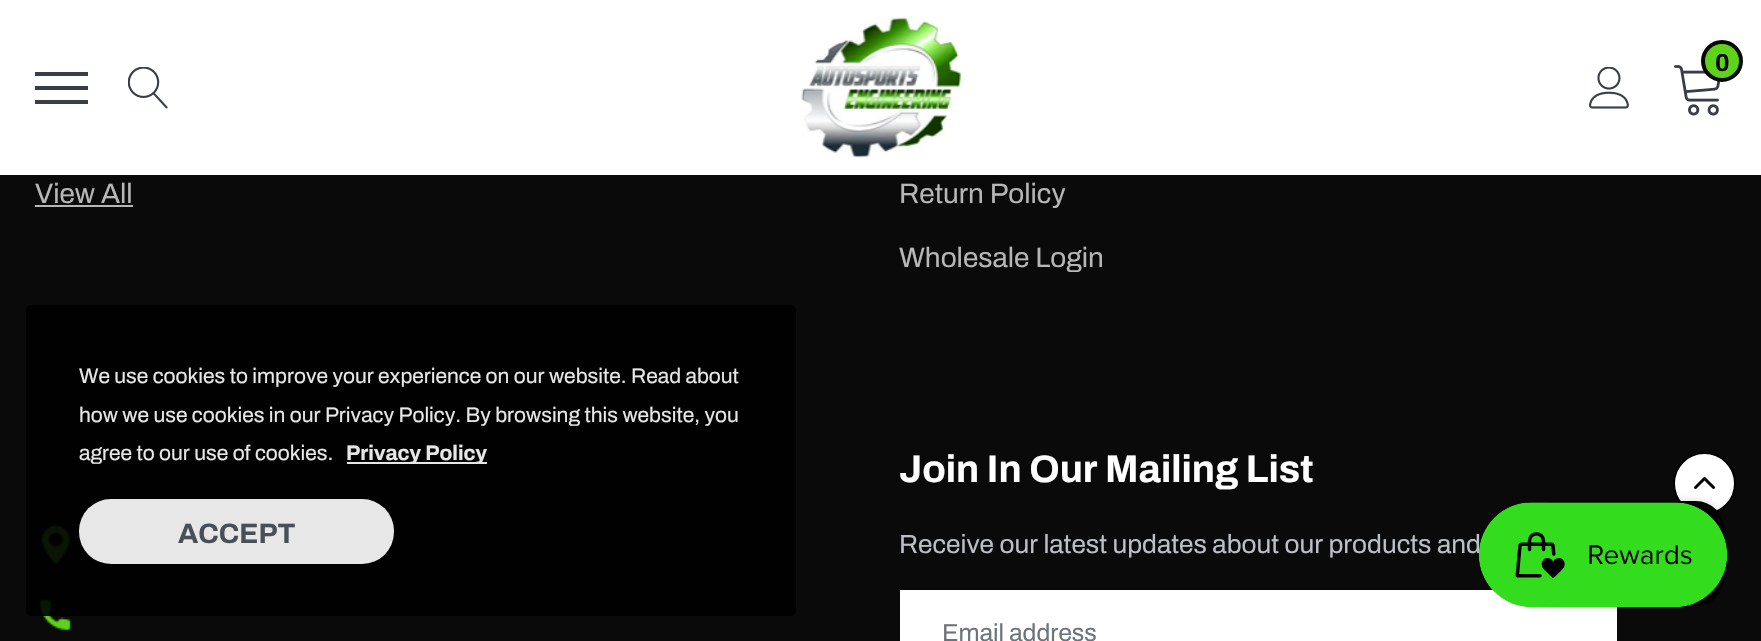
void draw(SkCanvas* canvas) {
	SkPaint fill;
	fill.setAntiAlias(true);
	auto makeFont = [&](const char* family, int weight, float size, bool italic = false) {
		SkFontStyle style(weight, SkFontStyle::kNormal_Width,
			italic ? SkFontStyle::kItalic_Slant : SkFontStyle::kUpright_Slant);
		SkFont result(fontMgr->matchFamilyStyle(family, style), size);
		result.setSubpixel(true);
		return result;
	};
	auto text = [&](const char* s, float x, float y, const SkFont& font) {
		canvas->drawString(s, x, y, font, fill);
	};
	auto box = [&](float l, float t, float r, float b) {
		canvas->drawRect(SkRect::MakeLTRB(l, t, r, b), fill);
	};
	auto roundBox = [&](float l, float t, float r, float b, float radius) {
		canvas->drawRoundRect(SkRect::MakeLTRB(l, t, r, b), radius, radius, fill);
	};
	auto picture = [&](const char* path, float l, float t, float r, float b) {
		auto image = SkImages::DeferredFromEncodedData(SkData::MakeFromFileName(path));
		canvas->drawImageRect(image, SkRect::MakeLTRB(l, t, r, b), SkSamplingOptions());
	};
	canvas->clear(0xFF0A0A0A);
	fill.setColor(0xFFFFFFFF);
	box(0, 0, 1761, 175);
	picture("image0.png", 801, 17, 961, 158);
	picture("image1.png", 1674, 65, 1721, 116);
	fill.setColor(0xFF5ED31A);
	canvas->drawCircle(1722, 61, 19, fill);
	fill.setStyle(SkPaint::kStroke_Style);
	fill.setStrokeWidth(4);
	fill.setColor(0xFF070707);
	canvas->drawCircle(1722, 61, 19, fill);
	picture("image2.png", 1589, 67, 1629, 109);
	fill.setStyle(SkPaint::kFill_Style);
	fill.setColor(0xFF383E47);
	box(35, 86, 88, 90);
	box(35, 72, 88, 76);
	box(35, 100, 88, 104);
	picture("image3.png", 128, 67, 168, 109);
	fill.setColor(0xFFB6B6B6);
	box(35, 205, 133, 207);
	picture("image4.png", 41, 524, 71, 565);
	picture("image5.png", 39, 599, 72, 631);
	fill.setColor(0xFFFFFFFF);
	box(900, 590, 1617, 641);
	canvas->drawCircle(1704.5f, 483.5f, 30.5f, fill);
	fill.setStyle(SkPaint::kStroke_Style);
	fill.setStrokeWidth(2);
	fill.setColor(0xFF000000);
	canvas->drawCircle(1704.5f, 483.5f, 30.5f, fill);
	picture("image6.png", 1694, 477, 1715, 489);
	fill.setStyle(SkPaint::kFill_Style);
	fill.setColor(0xE6000000);
	roundBox(26, 305, 796, 616, 5);
	fill.setColor(0xFFE7E7E7);
	box(347, 462, 487, 464);
	fill.setColor(0xE6FFFFFF);
	roundBox(79, 499, 394, 564, 32);
	fill.setColor(0x26000000);
	fill.setMaskFilter(SkMaskFilter::MakeBlur(kNormal_SkBlurStyle, 4.5f));
	canvas->drawRoundRect(SkRect::MakeLTRB(1526, 501, 1724, 606), 28, 28, fill);
	fill.setMaskFilter(nullptr);
	fill.setColor(0xFF000000);
	roundBox(1526, 501, 1724, 606, 28);
	picture("image7.png", 1479, 502, 1727, 607);
	auto font1 = makeFont("Archivo", 700, 24.5f);
	fill.setColor(0xFF070707);
	text("0", 1715, 71, font1);
	auto font2 = makeFont("Archivo", 600, 28);
	fill.setColor(0xFFB6B6B6);
	text("View All", 35, 203, font2);
	text("Return Policy", 899, 203, font2);
	text("Wholesale Login", 899, 267, font2);
	auto font3 = makeFont("Archivo", 700, 38.5f);
	fill.setColor(0xFFFFFFFF);
	text("Join In Our Mailing List", 899, 482, font3);
	auto font4 = makeFont("Archivo", 600, 26.25f);
	fill.setColor(0xFFBCBFC5);
	text("Receive our latest updates about our products and", 899, 553, font4);
	auto font5 = makeFont("Archivo", 600, 24.5f);
	fill.setColor(0xFF6C757D);
	text("Email address", 942, 641, font5);
	auto font6 = makeFont("Archivo", 600, 21);
	fill.setColor(0xFFE7E7E7);
	text("We use cookies to improve your experience on our website. Read about", 79, 383, font6);
	text("how we use cookies in our Privacy Policy. By browsing this website, you", 79, 422, font6);
	text("agree to our use of cookies.", 79, 460, font6);
	auto font7 = makeFont("Archivo", 700, 21);
	text("Privacy Policy", 346, 460, font7);
	auto font8 = makeFont("Archivo", 700, 28);
	fill.setColor(0xFF494F57);
	text("ACCEPT", 178, 543, font8);
}
